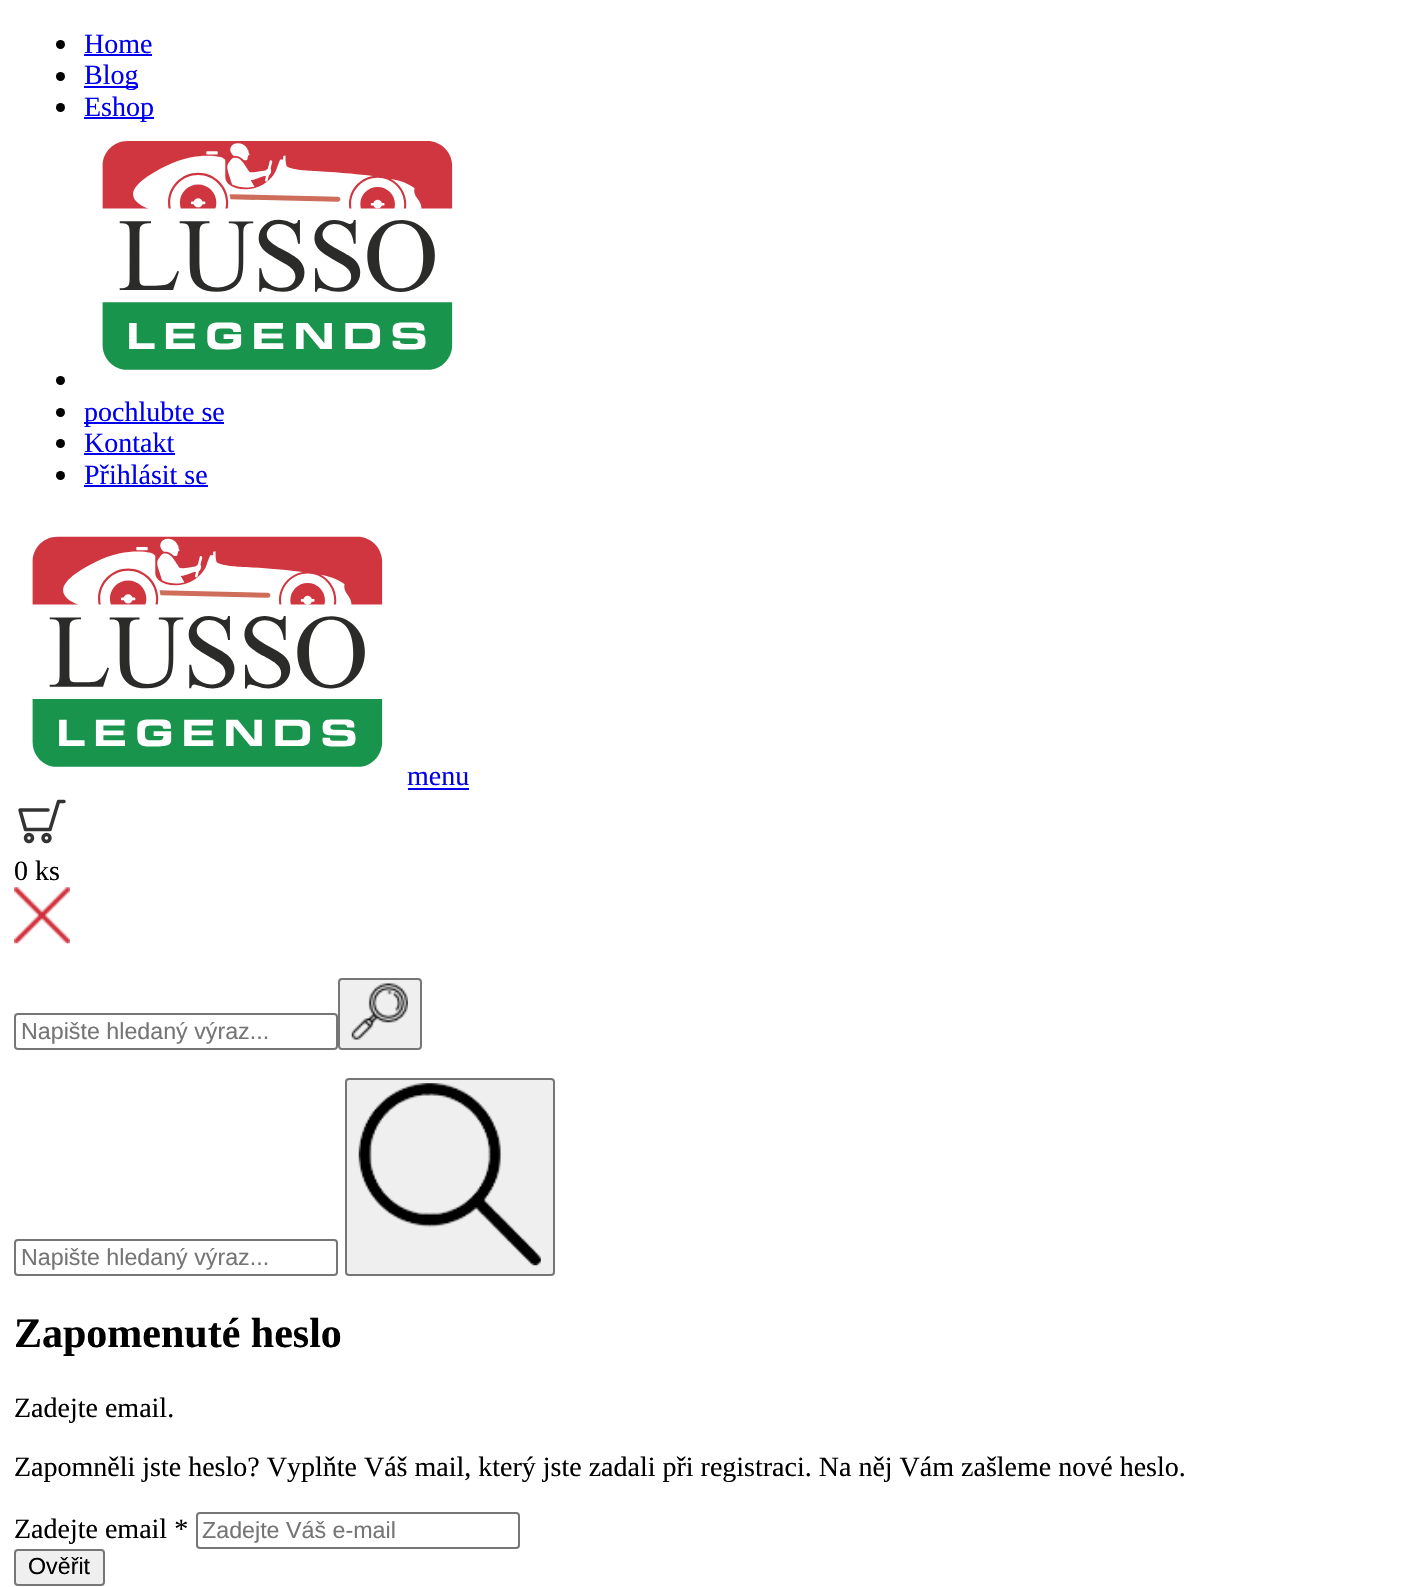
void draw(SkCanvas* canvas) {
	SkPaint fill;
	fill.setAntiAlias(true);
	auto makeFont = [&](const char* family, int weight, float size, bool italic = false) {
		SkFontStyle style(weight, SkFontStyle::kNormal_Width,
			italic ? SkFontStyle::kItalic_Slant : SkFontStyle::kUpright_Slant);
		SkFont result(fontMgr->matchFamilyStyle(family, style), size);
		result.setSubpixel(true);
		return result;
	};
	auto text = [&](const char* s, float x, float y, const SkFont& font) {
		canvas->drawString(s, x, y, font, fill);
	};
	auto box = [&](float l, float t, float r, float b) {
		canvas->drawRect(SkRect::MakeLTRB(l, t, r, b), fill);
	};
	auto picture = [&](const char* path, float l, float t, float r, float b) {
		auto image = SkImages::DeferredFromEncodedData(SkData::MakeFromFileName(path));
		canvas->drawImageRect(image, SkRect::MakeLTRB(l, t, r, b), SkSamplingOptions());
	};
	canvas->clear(0xFFFFFFFF);
	fill.setColor(0xFF000000);
	canvas->drawCircle(60.5f, 44.5f, 4.5f, fill);
	fill.setColor(0xFF0000EE);
	box(84, 54, 152, 56);
	fill.setColor(0xFF000000);
	canvas->drawCircle(60.5f, 76.5f, 4.5f, fill);
	fill.setColor(0xFF0000EE);
	box(84, 86, 138, 88);
	fill.setColor(0xFF000000);
	canvas->drawCircle(60.5f, 107.5f, 4.5f, fill);
	fill.setColor(0xFF0000EE);
	box(84, 117, 154, 119);
	picture("image0.png", 102, 141, 453, 370);
	fill.setColor(0xFF000000);
	canvas->drawCircle(60.5f, 380.5f, 4.5f, fill);
	canvas->drawCircle(60.5f, 412.5f, 4.5f, fill);
	fill.setColor(0xFF0000EE);
	box(84, 422, 224, 424);
	fill.setColor(0xFF000000);
	canvas->drawCircle(60.5f, 443.5f, 4.5f, fill);
	fill.setColor(0xFF0000EE);
	box(84, 453, 175, 455);
	fill.setColor(0xFF000000);
	canvas->drawCircle(60.5f, 475.5f, 4.5f, fill);
	fill.setColor(0xFF0000EE);
	box(84, 485, 208, 487);
	picture("image1.png", 32, 536, 383, 767);
	box(408, 788, 469, 790);
	fill.setStyle(SkPaint::kStroke_Style);
	fill.setStrokeWidth(3.5f);
	fill.setStrokeCap(SkPaint::kRound_Cap);
	fill.setStrokeJoin(SkPaint::kRound_Join);
	fill.setColor(0xFF333333);
	canvas->drawPath(SkPathBuilder().moveTo(48, 810).lineTo(20, 810).lineTo(25.5f, 829.5f).lineTo(50, 829.5f).lineTo(58.5f, 801.5f).lineTo(64, 801.5f).detach(), fill);
	fill.setStrokeCap(SkPaint::kButt_Cap);
	fill.setStrokeJoin(SkPaint::kMiter_Join);
	canvas->drawCircle(29, 838, 3.5f, fill);
	canvas->drawCircle(46.5f, 838, 3.5f, fill);
	picture("image2.png", 14, 887, 70, 944);
	fill.setStrokeWidth(2);
	fill.setColor(0xFF767676);
	canvas->drawRoundRect(SkRect::MakeLTRB(15, 1014, 337, 1049), 3, 3, fill);
	fill.setStyle(SkPaint::kFill_Style);
	fill.setColor(0xFFEFEFEF);
	canvas->drawRoundRect(SkRect::MakeLTRB(339, 979, 421, 1049), 3, 3, fill);
	fill.setStyle(SkPaint::kStroke_Style);
	fill.setColor(0xFF767676);
	canvas->drawRoundRect(SkRect::MakeLTRB(339, 979, 421, 1049), 3, 3, fill);
	picture("image3.png", 351, 983, 408, 1040);
	canvas->drawRoundRect(SkRect::MakeLTRB(15, 1240, 337, 1275), 3, 3, fill);
	fill.setStyle(SkPaint::kFill_Style);
	fill.setColor(0xFFEFEFEF);
	canvas->drawRoundRect(SkRect::MakeLTRB(346, 1079, 554, 1275), 3, 3, fill);
	fill.setStyle(SkPaint::kStroke_Style);
	fill.setColor(0xFF767676);
	canvas->drawRoundRect(SkRect::MakeLTRB(346, 1079, 554, 1275), 3, 3, fill);
	picture("image4.png", 358, 1083, 541, 1266);
	canvas->drawRoundRect(SkRect::MakeLTRB(197, 1513, 519, 1548), 3, 3, fill);
	fill.setStyle(SkPaint::kFill_Style);
	fill.setColor(0xFFEFEFEF);
	canvas->drawRoundRect(SkRect::MakeLTRB(15, 1550, 104, 1585), 3, 3, fill);
	fill.setStyle(SkPaint::kStroke_Style);
	fill.setColor(0xFF767676);
	canvas->drawRoundRect(SkRect::MakeLTRB(15, 1550, 104, 1585), 3, 3, fill);
	auto font1 = makeFont("Liberation Serif", 400, 28);
	fill.setStyle(SkPaint::kFill_Style);
	fill.setColor(0xFF0000EE);
	text("Home", 84, 53, font1);
	text("Blog", 84, 84, font1);
	text("Eshop", 84, 116, font1);
	text("pochlubte se", 84, 421, font1);
	text("Kontakt", 84, 452, font1);
	text("Přihlásit se", 84, 484, font1);
	text("menu", 407, 785, font1);
	fill.setColor(0xFF000000);
	text("0 ks", 14, 880, font1);
	auto font2 = makeFont("Liberation Sans", 400, 23.25f);
	fill.setColor(0xFF757575);
	text("Napište hledaný výraz...", 21, 1039, font2);
	text("Napište hledaný výraz...", 21, 1265, font2);
	auto font3 = makeFont("Liberation Serif", 700, 42);
	fill.setColor(0xFF000000);
	text("Zapomenuté heslo", 14, 1347, font3);
	text("Zadejte email.", 14, 1417, font1);
	text("Zapomněli jste heslo? Vyplňte Váš mail, který jste zadali při registraci. Na něj Vám zašleme nové heslo.", 14, 1476, font1);
	text("Zadejte email *", 14, 1538, font1);
	fill.setColor(0xFF757575);
	text("Zadejte Váš e-mail", 202, 1538, font2);
	fill.setColor(0xFF000000);
	text("Ověřit", 28, 1574, font2);
}
